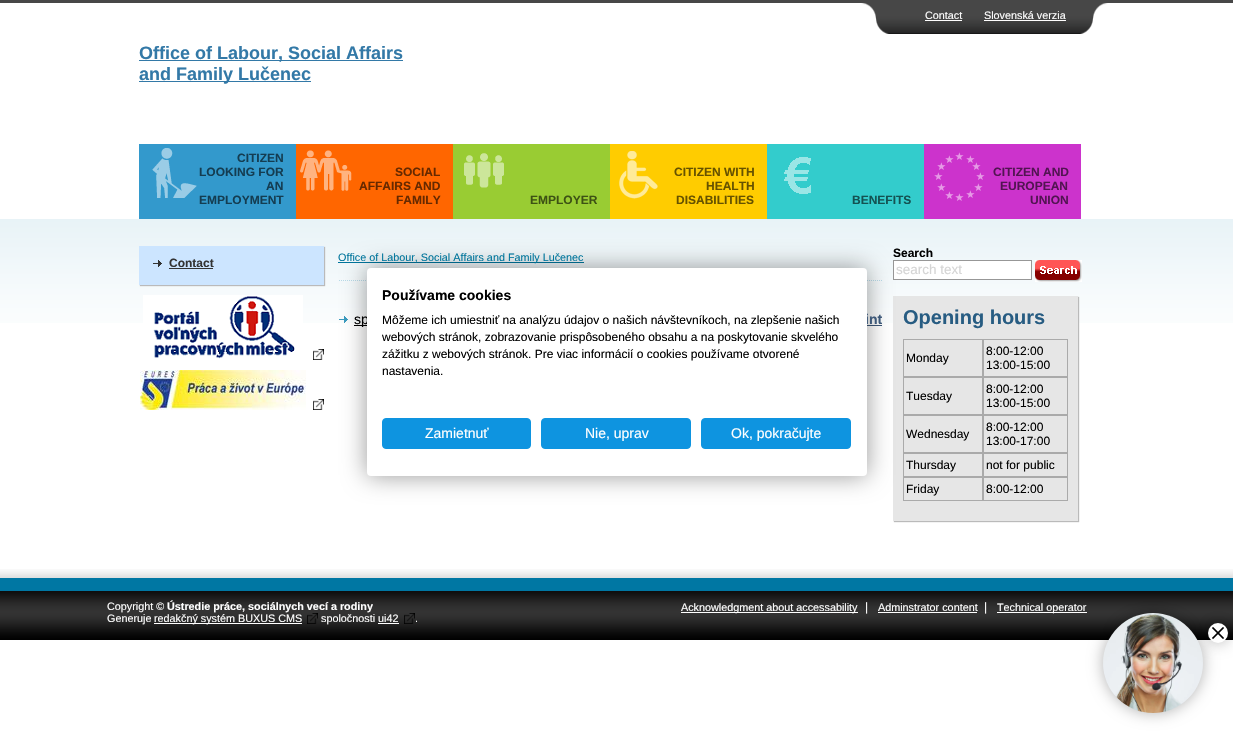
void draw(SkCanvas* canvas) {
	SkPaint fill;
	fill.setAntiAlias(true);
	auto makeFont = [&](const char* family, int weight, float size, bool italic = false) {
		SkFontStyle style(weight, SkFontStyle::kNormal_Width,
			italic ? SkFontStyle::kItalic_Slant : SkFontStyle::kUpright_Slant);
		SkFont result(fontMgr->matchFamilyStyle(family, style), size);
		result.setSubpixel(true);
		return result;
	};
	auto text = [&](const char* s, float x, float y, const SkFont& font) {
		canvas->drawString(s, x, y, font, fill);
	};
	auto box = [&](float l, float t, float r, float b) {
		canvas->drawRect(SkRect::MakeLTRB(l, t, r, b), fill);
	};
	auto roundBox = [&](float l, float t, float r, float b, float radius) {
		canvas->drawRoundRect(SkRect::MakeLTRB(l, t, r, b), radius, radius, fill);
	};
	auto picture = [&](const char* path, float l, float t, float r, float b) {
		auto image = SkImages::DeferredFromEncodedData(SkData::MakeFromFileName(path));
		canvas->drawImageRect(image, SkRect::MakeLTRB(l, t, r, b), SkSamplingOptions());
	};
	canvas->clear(0xFFFFFFFF);
	picture("image0.png", 0, 0, 1233, 323);
	picture("image1.png", 861, 3, 892, 34);
	picture("image2.png", 892, 3, 1077, 34);
	fill.setColor(0xFFFFFFFF);
	box(925, 20, 962, 21);
	box(984, 20, 1066, 21);
	picture("image3.png", 1077, 3, 1108, 34);
	fill.setColor(0xFF3379A7);
	box(139, 60, 403, 61);
	box(139, 81, 311, 82);
	fill.setColor(0xFF3399CC);
	box(139, 144, 296, 219);
	picture("image4.png", 152, 148, 197, 198);
	fill.setColor(0xFFFF6600);
	box(296, 144, 453, 219);
	picture("image5.png", 300, 150, 352, 191);
	fill.setColor(0xFF99CC33);
	box(453, 144, 610, 219);
	picture("image6.png", 464, 153, 504, 188);
	fill.setColor(0xFFFFCC00);
	box(610, 144, 767, 219);
	picture("image7.png", 619, 151, 658, 199);
	fill.setColor(0xFF33CCCC);
	box(767, 144, 924, 219);
	picture("image8.png", 784, 157, 811, 194);
	fill.setColor(0xFFCC33CC);
	box(924, 144, 1081, 219);
	picture("image9.png", 934, 152, 985, 201);
	fill.setColor(0xFFBABABA);
	fill.setMaskFilter(SkMaskFilter::MakeBlur(kNormal_SkBlurStyle, 0.5f));
	canvas->drawRect(SkRect::MakeLTRB(140, 247, 325, 286), fill);
	fill.setMaskFilter(nullptr);
	fill.setColor(0xFFCCE5FF);
	box(139, 246, 324, 285);
	picture("image10.png", 153, 260, 162, 267);
	fill.setColor(0xFF333333);
	box(169, 268, 213, 269);
	picture("image11.png", 313, 349, 324, 360);
	picture("image12.png", 143, 295, 303, 359);
	picture("image11.png", 313, 399, 324, 410);
	picture("image13.png", 140, 370, 306, 410);
	fill.setColor(0xFF00759C);
	box(338, 262, 584, 263);
	fill.setStyle(SkPaint::kStroke_Style);
	fill.setStrokeWidth(1);
	fill.setColor(0xFFB8DBE8);
	fill.setPathEffect(SkDashPathEffect::Make({{1, 1}}, 0));
	canvas->drawPath(SkPathBuilder().moveTo(339, 280.5f).lineTo(882, 280.5f).detach(), fill);
	fill.setPathEffect(nullptr);
	picture("image14.png", 339, 316, 348, 323);
	fill.setStyle(SkPaint::kFill_Style);
	fill.setColor(0xFF000000);
	box(354, 325, 367, 326);
	fill.setColor(0xFF3D5878);
	box(867, 325, 882, 326);
	fill.setColor(0xFFFFFFFF);
	canvas->drawRect(SkRect::MakeLTRB(893.5f, 260.5f, 1031.5f, 279.5f), fill);
	fill.setStyle(SkPaint::kStroke_Style);
	fill.setColor(0xFF979797);
	canvas->drawRect(SkRect::MakeLTRB(893.5f, 260.5f, 1031.5f, 279.5f), fill);
	picture("image15.png", 1035, 260, 1082, 282);
	fill.setStyle(SkPaint::kFill_Style);
	fill.setColor(0xFFBABABA);
	fill.setMaskFilter(SkMaskFilter::MakeBlur(kNormal_SkBlurStyle, 0.5f));
	canvas->drawRect(SkRect::MakeLTRB(894, 297, 1079, 522), fill);
	fill.setMaskFilter(nullptr);
	fill.setColor(0xFFE6E6E6);
	box(893, 296, 1078, 521);
	fill.setStyle(SkPaint::kStroke_Style);
	fill.setColor(0xFFAAAAAA);
	canvas->drawRect(SkRect::MakeLTRB(903.5f, 339.5f, 982.5f, 376.5f), fill);
	canvas->drawRect(SkRect::MakeLTRB(983.5f, 339.5f, 1067.5f, 376.5f), fill);
	canvas->drawRect(SkRect::MakeLTRB(903.5f, 377.5f, 982.5f, 414.5f), fill);
	canvas->drawRect(SkRect::MakeLTRB(983.5f, 377.5f, 1067.5f, 414.5f), fill);
	canvas->drawRect(SkRect::MakeLTRB(903.5f, 415.5f, 982.5f, 452.5f), fill);
	canvas->drawRect(SkRect::MakeLTRB(983.5f, 415.5f, 1067.5f, 452.5f), fill);
	canvas->drawRect(SkRect::MakeLTRB(903.5f, 453.5f, 982.5f, 476.5f), fill);
	canvas->drawRect(SkRect::MakeLTRB(983.5f, 453.5f, 1067.5f, 476.5f), fill);
	canvas->drawRect(SkRect::MakeLTRB(903.5f, 477.5f, 982.5f, 500.5f), fill);
	canvas->drawRect(SkRect::MakeLTRB(983.5f, 477.5f, 1067.5f, 500.5f), fill);
	fill.setStyle(SkPaint::kFill_Style);
	fill.setColor(0x66000000);
	fill.setMaskFilter(SkMaskFilter::MakeBlur(kNormal_SkBlurStyle, 12));
	canvas->drawRoundRect(SkRect::MakeLTRB(367, 268, 867, 476), 4, 4, fill);
	fill.setMaskFilter(nullptr);
	picture("image16.png", 0, 569, 1233, 640);
	fill.setColor(0xFFFFFFFF);
	box(154, 623, 302, 624);
	picture("image17.png", 307, 613, 318, 624);
	picture("image17.png", 404, 613, 415, 624);
	box(378, 623, 399, 624);
	box(681, 612, 858, 613);
	box(878, 612, 977, 613);
	box(997, 612, 1087, 613);
	fill.setColor(0x4D000000);
	fill.setMaskFilter(SkMaskFilter::MakeBlur(kNormal_SkBlurStyle, 7.5f));
	canvas->drawRoundRect(SkRect::MakeLTRB(1208, 623, 1228, 643), 10, 10, fill);
	fill.setMaskFilter(nullptr);
	fill.setColor(0xFFFFFFFF);
	canvas->drawCircle(1218, 633, 10, fill);
	picture("image19.png", 1212, 627, 1224, 639);
	fill.setColor(0x4D000000);
	fill.setMaskFilter(SkMaskFilter::MakeBlur(kNormal_SkBlurStyle, 7.5f));
	canvas->drawRoundRect(SkRect::MakeLTRB(1103, 613, 1203, 713), 50, 50, fill);
	fill.setMaskFilter(nullptr);
	picture("image18.png", 1103, 613, 1203, 713);
	auto font1 = makeFont("Liberation Sans", 400, 10.8f);
	fill.setColor(0xFFFFFFFF);
	text("Contact", 925, 19, font1);
	text("Slovenská verzia", 984, 19, font1);
	auto font2 = makeFont("Liberation Sans", 700, 18);
	fill.setColor(0xFF3379A7);
	text("Office of Labour, Social Affairs", 139, 59, font2);
	text("and Family Lučenec", 139, 80, font2);
	auto font3 = makeFont("Liberation Sans", 700, 12);
	fill.setColor(0xFF143D52);
	text("CITIZEN", 237, 162, font3);
	text("LOOKING FOR", 199, 176, font3);
	text("AN", 266, 190, font3);
	text("EMPLOYMENT", 199, 204, font3);
	fill.setColor(0xFF662900);
	text("SOCIAL", 395, 176, font3);
	text("AFFAIRS AND", 359, 190, font3);
	text("FAMILY", 396, 204, font3);
	fill.setColor(0xFF3D5214);
	text("EMPLOYER", 530, 204, font3);
	fill.setColor(0xFF665200);
	text("CITIZEN WITH", 674, 176, font3);
	text("HEALTH", 706, 190, font3);
	text("DISABILITIES", 676, 204, font3);
	fill.setColor(0xFF145252);
	text("BENEFITS", 852, 204, font3);
	fill.setColor(0xFF521452);
	text("CITIZEN AND", 993, 176, font3);
	text("EUROPEAN", 1000, 190, font3);
	text("UNION", 1030, 204, font3);
	fill.setColor(0xFF333333);
	text("Contact", 169, 267, font3);
	fill.setColor(0xFF00759C);
	text("Office of Labour, Social Affairs and Family Lučenec", 338, 261, font1);
	auto font4 = makeFont("Liberation Sans", 400, 14);
	fill.setColor(0xFF000000);
	text("sp", 354, 324, font4);
	auto font5 = makeFont("Liberation Sans", 700, 14);
	fill.setColor(0xFF3D5878);
	text("int", 865, 324, font5);
	fill.setColor(0xFF000000);
	text("Search", 893, 257, font3);
	auto font6 = makeFont("Liberation Sans", 400, 13.5f);
	fill.setColor(0xFFD5D5D5);
	text("search text", 896, 274, font6);
	auto font7 = makeFont("Liberation Sans", 700, 20);
	fill.setColor(0xFF275C82);
	text("Opening hours", 903, 324, font7);
	auto font8 = makeFont("Liberation Sans", 400, 12);
	fill.setColor(0xFF000000);
	text("Monday", 906, 362, font8);
	text("8:00-12:00", 986, 355, font8);
	text("13:00-15:00", 986, 369, font8);
	text("Tuesday", 906, 400, font8);
	text("8:00-12:00", 986, 393, font8);
	text("13:00-15:00", 986, 407, font8);
	text("Wednesday", 906, 438, font8);
	text("8:00-12:00", 986, 431, font8);
	text("13:00-17:00", 986, 445, font8);
	text("Thursday", 906, 469, font8);
	text("not for public", 986, 469, font8);
	text("Friday", 906, 493, font8);
	text("8:00-12:00", 986, 493, font8);
	fill.setColor(0xFFFFFFFF);
	roundBox(367, 268, 867, 476, 4);
	fill.setColor(0xFF000000);
	text("Používame cookies", 382, 300, font5);
	text("Môžeme ich umiestniť na analýzu údajov o našich návštevníkoch, na zlepšenie našich", 382, 324, font8);
	text("webových stránok, zobrazovanie prispôsobeného obsahu a na poskytovanie skvelého", 382, 341, font8);
	text("zážitku z webových stránok. Pre viac informácií o cookies používame otvorené", 382, 358, font8);
	text("nastavenia.", 382, 375, font8);
	fill.setColor(0xFF0E94E0);
	canvas->drawRoundRect(SkRect::MakeLTRB(382.5f, 418.5f, 530.5f, 448.5f), 3.5f, 3.5f, fill);
	fill.setStyle(SkPaint::kStroke_Style);
	canvas->drawRoundRect(SkRect::MakeLTRB(382.5f, 418.5f, 530.5f, 448.5f), 3.5f, 3.5f, fill);
	fill.setStyle(SkPaint::kFill_Style);
	fill.setColor(0xFFFFFFFF);
	text("Zamietnuť", 425, 438, font4);
	fill.setColor(0xFF0E94E0);
	canvas->drawRoundRect(SkRect::MakeLTRB(541.5f, 418.5f, 690.5f, 448.5f), 3.5f, 3.5f, fill);
	fill.setStyle(SkPaint::kStroke_Style);
	canvas->drawRoundRect(SkRect::MakeLTRB(541.5f, 418.5f, 690.5f, 448.5f), 3.5f, 3.5f, fill);
	fill.setStyle(SkPaint::kFill_Style);
	fill.setColor(0xFFFFFFFF);
	text("Nie, uprav", 585, 438, font4);
	fill.setColor(0xFF0E94E0);
	canvas->drawRoundRect(SkRect::MakeLTRB(701.5f, 418.5f, 850.5f, 448.5f), 3.5f, 3.5f, fill);
	fill.setStyle(SkPaint::kStroke_Style);
	canvas->drawRoundRect(SkRect::MakeLTRB(701.5f, 418.5f, 850.5f, 448.5f), 3.5f, 3.5f, fill);
	fill.setStyle(SkPaint::kFill_Style);
	fill.setColor(0xFFFFFFFF);
	text("Ok, pokračujte", 731, 438, font4);
	text("Copyright ©", 107, 610, font1);
	auto font9 = makeFont("Liberation Sans", 700, 10.8f);
	text("Ústredie práce, sociálnych vecí a rodiny", 167, 610, font9);
	text("Generuje", 107, 622, font1);
	text("redakčný systém BUXUS CMS", 154, 622, font1);
	text("spoločnosti ui42", 321, 622, font1);
	text(".", 415, 622, font1);
	text("Acknowledgment about accessability", 681, 611, font1);
	text("|", 865, 611, font8);
	text("Adminstrator content", 878, 611, font1);
	text("|", 984, 611, font8);
	text("Technical operator", 997, 611, font1);
}
